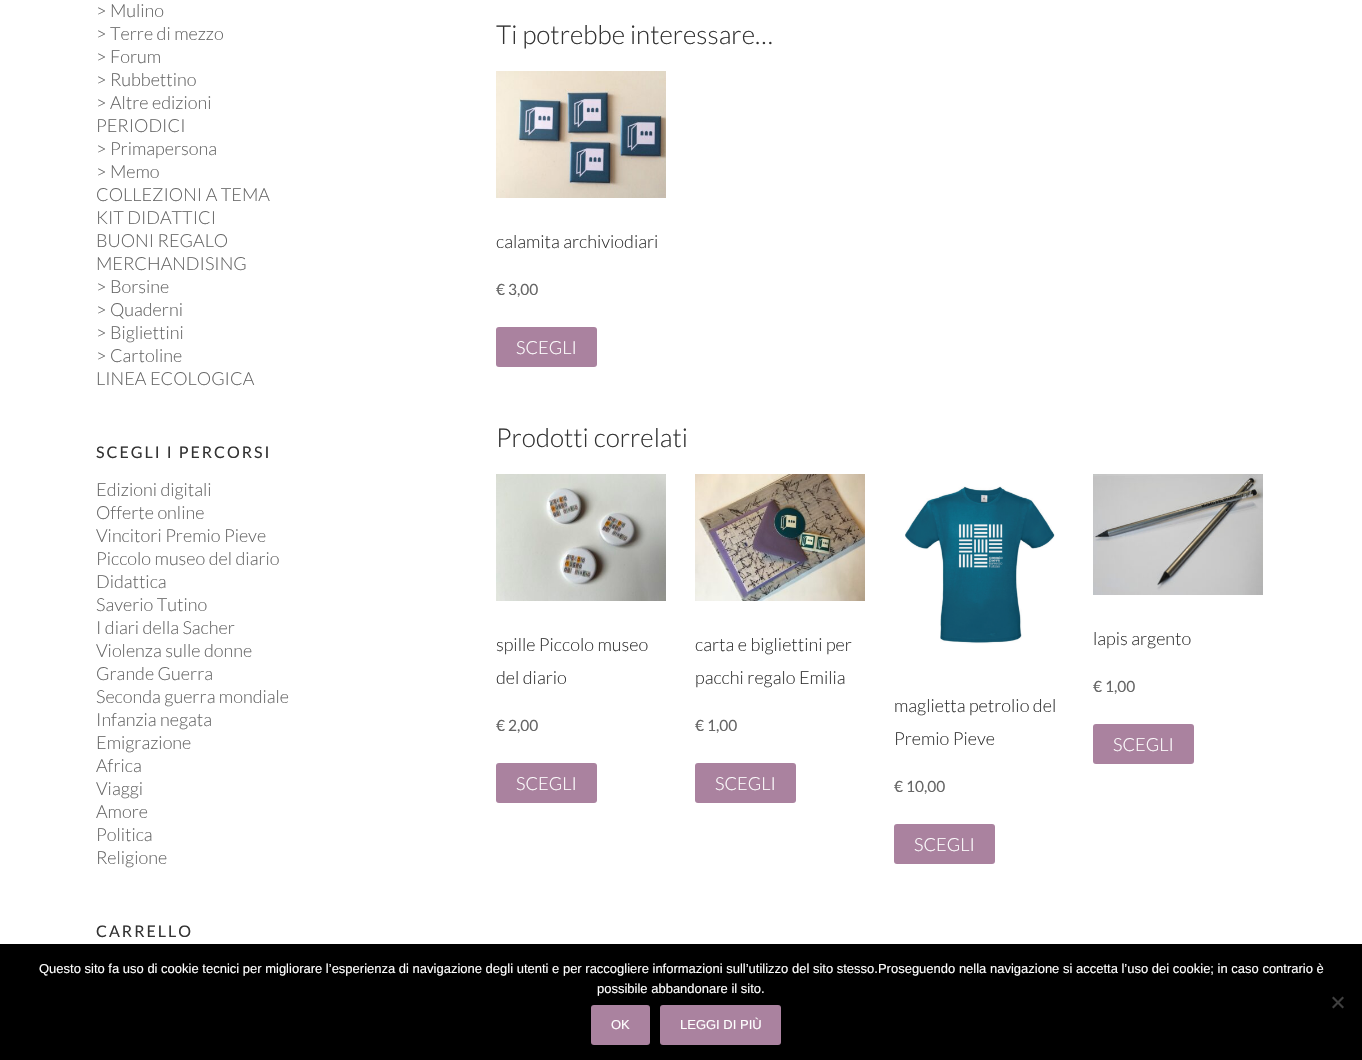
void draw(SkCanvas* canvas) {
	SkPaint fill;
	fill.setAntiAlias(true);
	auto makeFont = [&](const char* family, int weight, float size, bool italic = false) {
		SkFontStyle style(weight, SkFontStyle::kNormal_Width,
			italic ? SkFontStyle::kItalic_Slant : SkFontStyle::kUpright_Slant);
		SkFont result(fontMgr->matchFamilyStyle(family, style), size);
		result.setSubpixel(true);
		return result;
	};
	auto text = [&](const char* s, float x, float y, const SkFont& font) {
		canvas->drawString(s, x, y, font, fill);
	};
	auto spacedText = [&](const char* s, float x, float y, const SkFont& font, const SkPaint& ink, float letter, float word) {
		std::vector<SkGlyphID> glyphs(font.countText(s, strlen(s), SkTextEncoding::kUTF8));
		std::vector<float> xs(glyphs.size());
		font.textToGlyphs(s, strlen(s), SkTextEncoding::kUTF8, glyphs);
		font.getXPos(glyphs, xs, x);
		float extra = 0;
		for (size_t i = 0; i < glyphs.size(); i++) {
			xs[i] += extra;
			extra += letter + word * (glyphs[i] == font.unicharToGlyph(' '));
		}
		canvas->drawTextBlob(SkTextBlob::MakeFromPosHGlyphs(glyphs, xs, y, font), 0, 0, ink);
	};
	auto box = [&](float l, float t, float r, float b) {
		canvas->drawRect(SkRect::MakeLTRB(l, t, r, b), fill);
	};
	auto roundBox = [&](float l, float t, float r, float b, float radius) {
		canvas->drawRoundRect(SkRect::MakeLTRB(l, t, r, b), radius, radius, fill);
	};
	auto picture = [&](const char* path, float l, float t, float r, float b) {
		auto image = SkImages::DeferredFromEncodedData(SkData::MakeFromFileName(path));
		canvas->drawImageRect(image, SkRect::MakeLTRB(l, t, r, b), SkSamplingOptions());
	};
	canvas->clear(0xFFFFFFFF);
	picture("image0.png", 496, 71, 666, 198);
	fill.setColor(0xFFAA829F);
	roundBox(496, 327, 597, 367, 3);
	picture("image1.png", 496, 474, 666, 601);
	roundBox(496, 763, 597, 803, 3);
	picture("image2.png", 695, 474, 865, 601);
	roundBox(695, 763, 796, 803, 3);
	picture("image3.png", 905, 486, 1055, 644);
	roundBox(894, 824, 995, 864, 3);
	picture("image4.png", 1093, 474, 1263, 595);
	roundBox(1093, 724, 1194, 764, 3);
	fill.setColor(0xFF000000);
	box(0, 944, 1362, 1060);
	fill.setColor(0xFF404040);
	canvas->drawPath(SkPathBuilder().moveTo(1342.5f, 996.5f).lineTo(1344, 998).lineTo(1333.5f, 1008.5f).lineTo(1332, 1007).close().detach(), fill);
	canvas->drawPath(SkPathBuilder().moveTo(1332, 998).lineTo(1333.5f, 996.5f).lineTo(1344, 1007).lineTo(1342.5f, 1008.5f).close().detach(), fill);
	fill.setColor(0xFFAA829F);
	roundBox(591, 1005, 650, 1045, 3);
	roundBox(660, 1005, 781, 1045, 3);
	auto font1 = makeFont("Lato", 300, 18);
	fill.setColor(0xFF666666);
	text("> Mulino", 96, 17, font1);
	text("> Terre di mezzo", 96, 40, font1);
	text("> Forum", 96, 63, font1);
	text("> Rubbettino", 96, 86, font1);
	text("> Altre edizioni", 96, 109, font1);
	text("PERIODICI", 96, 132, font1);
	text("> Primapersona", 96, 155, font1);
	text("> Memo", 96, 178, font1);
	text("COLLEZIONI A TEMA", 96, 201, font1);
	text("KIT DIDATTICI", 96, 224, font1);
	text("BUONI REGALO", 96, 247, font1);
	text("MERCHANDISING", 96, 270, font1);
	text("> Borsine", 96, 293, font1);
	text("> Quaderni", 96, 316, font1);
	text("> Bigliettini", 96, 339, font1);
	text("> Cartoline", 96, 362, font1);
	text("LINEA ECOLOGICA", 96, 385, font1);
	auto font2 = makeFont("Lato", 400, 16);
	fill.setColor(0xFF333333);
	spacedText("SCEGLI I PERCORSI", 96, 458, font2, fill, 2, 0);
	fill.setColor(0xFF666666);
	text("Edizioni digitali", 96, 496, font1);
	text("Offerte online", 96, 519, font1);
	text("Vincitori Premio Pieve", 96, 542, font1);
	text("Piccolo museo del diario", 96, 565, font1);
	text("Didattica", 96, 588, font1);
	text("Saverio Tutino", 96, 611, font1);
	text("I diari della Sacher", 96, 634, font1);
	text("Violenza sulle donne", 96, 657, font1);
	text("Grande Guerra", 96, 680, font1);
	text("Seconda guerra mondiale", 96, 703, font1);
	text("Infanzia negata", 96, 726, font1);
	text("Emigrazione", 96, 749, font1);
	text("Africa", 96, 772, font1);
	text("Viaggi", 96, 795, font1);
	text("Amore", 96, 818, font1);
	text("Politica", 96, 841, font1);
	text("Religione", 96, 864, font1);
	fill.setColor(0xFF333333);
	spacedText("CARRELLO", 96, 937, font2, fill, 2, 0);
	auto font3 = makeFont("Lato", 300, 26);
	text("Ti potrebbe interessare…", 496, 44, font3);
	text("calamita archiviodiari", 496, 248, font1);
	auto font4 = makeFont("Lato", 400, 15.5f);
	fill.setColor(0xFF666666);
	text("€ 3,00", 496, 295, font4);
	fill.setColor(0xFFFFFFFF);
	text("SCEGLI", 516, 354, font1);
	fill.setColor(0xFF333333);
	text("Prodotti correlati", 496, 447, font3);
	text("spille Piccolo museo", 496, 651, font1);
	text("del diario", 496, 684, font1);
	fill.setColor(0xFF666666);
	text("€ 2,00", 496, 731, font4);
	fill.setColor(0xFFFFFFFF);
	text("SCEGLI", 516, 790, font1);
	fill.setColor(0xFF333333);
	text("carta e bigliettini per", 695, 651, font1);
	text("pacchi regalo Emilia", 695, 684, font1);
	fill.setColor(0xFF666666);
	text("€ 1,00", 695, 731, font4);
	fill.setColor(0xFFFFFFFF);
	text("SCEGLI", 715, 790, font1);
	fill.setColor(0xFF333333);
	text("maglietta petrolio del", 894, 712, font1);
	text("Premio Pieve", 894, 745, font1);
	fill.setColor(0xFF666666);
	text("€ 10,00", 894, 792, font4);
	fill.setColor(0xFFFFFFFF);
	text("SCEGLI", 914, 851, font1);
	fill.setColor(0xFF333333);
	text("lapis argento", 1093, 645, font1);
	fill.setColor(0xFF666666);
	text("€ 1,00", 1093, 692, font4);
	fill.setColor(0xFFFFFFFF);
	text("SCEGLI", 1113, 751, font1);
	auto font5 = makeFont("Liberation Sans", 400, 13);
	text("Questo sito fa uso di cookie tecnici per migliorare l’esperienza di navigazione degli utenti e per raccogliere informazioni sull’utilizzo del sito stesso.Proseguendo nella navigazione si accetta l’uso dei cookie; in caso contrario è", 39, 973, font5);
	text("possibile abbandonare il sito.", 597, 993, font5);
	text("OK", 611, 1029, font5);
	text("LEGGI DI PIÙ", 680, 1029, font5);
}
